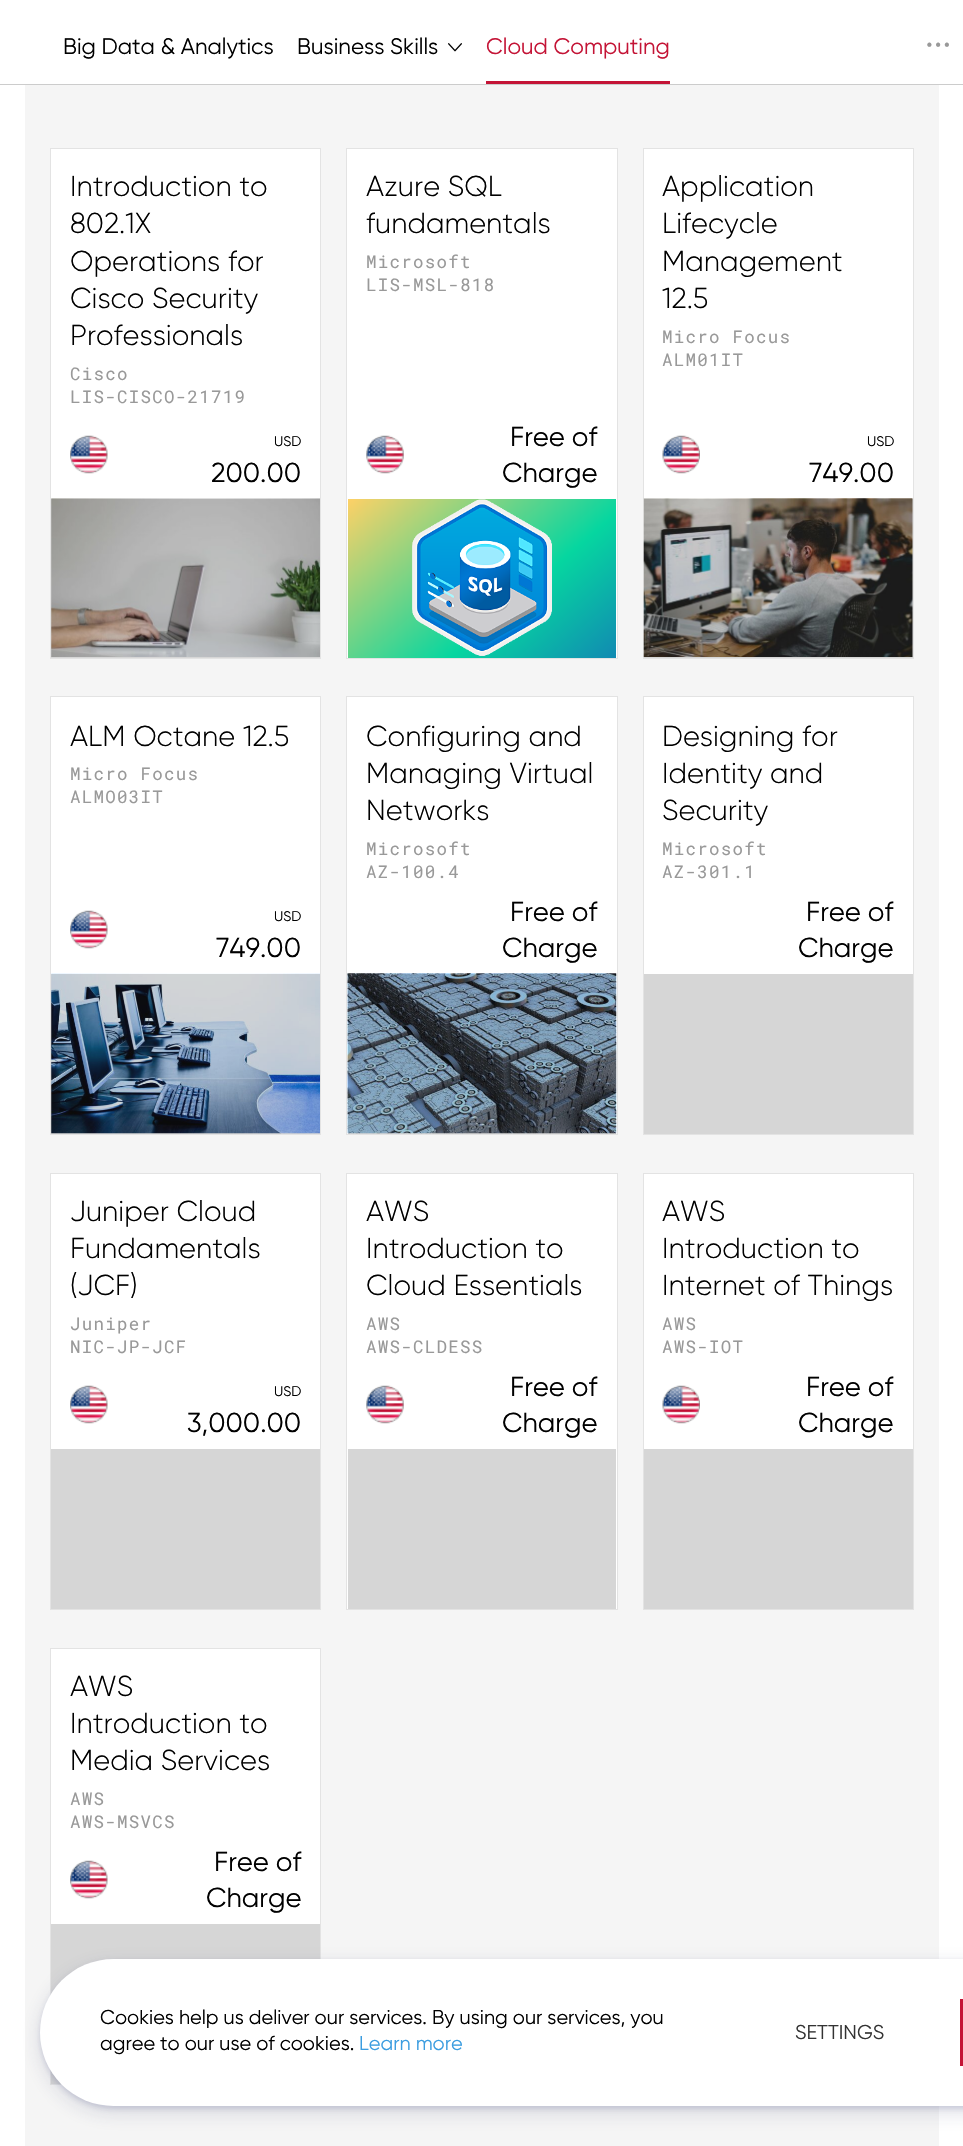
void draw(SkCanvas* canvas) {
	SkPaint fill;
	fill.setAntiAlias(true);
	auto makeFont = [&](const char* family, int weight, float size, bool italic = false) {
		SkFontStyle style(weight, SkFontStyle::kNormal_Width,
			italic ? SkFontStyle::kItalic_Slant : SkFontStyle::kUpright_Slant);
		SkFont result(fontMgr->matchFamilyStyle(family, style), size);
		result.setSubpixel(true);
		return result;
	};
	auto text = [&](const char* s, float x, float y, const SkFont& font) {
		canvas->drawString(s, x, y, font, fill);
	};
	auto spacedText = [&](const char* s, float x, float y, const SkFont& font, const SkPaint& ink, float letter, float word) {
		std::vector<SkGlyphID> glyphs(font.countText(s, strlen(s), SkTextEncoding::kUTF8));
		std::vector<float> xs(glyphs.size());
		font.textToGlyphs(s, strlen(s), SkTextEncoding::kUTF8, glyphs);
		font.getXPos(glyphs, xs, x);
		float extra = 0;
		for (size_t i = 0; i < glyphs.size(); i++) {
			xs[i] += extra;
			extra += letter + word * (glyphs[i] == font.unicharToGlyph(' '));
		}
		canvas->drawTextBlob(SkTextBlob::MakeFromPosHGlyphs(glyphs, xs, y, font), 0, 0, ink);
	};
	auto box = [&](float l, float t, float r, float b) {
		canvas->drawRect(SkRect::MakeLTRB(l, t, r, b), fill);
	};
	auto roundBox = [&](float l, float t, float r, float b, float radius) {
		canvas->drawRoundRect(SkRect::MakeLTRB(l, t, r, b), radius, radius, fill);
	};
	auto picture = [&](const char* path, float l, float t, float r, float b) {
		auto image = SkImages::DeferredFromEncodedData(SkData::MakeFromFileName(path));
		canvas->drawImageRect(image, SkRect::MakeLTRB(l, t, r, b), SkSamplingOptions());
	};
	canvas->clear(0xFFFFFFFF);
	fill.setColor(0xFFF5F5F5);
	box(25, 85, 939, 2146);
	fill.setColor(0xFFCCCCCC);
	canvas->drawPath(SkPathBuilder().moveTo(-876, -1).lineTo(-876, 85).lineTo(90, 85).lineTo(90, 84).lineTo(25, 84).lineTo(25, 0).lineTo(90, 0).lineTo(90, -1).close().detach(), fill);
	fill.setColor(0xFFFFFFFF);
	canvas->drawPath(SkPathBuilder().moveTo(-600, 0).lineTo(-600, 84).lineTo(364, 84).lineTo(25, 84).lineTo(25, 0).close().detach(), fill);
	picture("image0.png", 448, 43, 462, 52);
	fill.setColor(0xFFC41436);
	canvas->drawPath(SkPathBuilder().moveTo(486, 6).lineTo(486, 85).lineTo(670, 85).lineTo(670, 81).lineTo(486, 81).close().detach(), fill);
	fill.setColor(0xFFCCCCCC);
	box(90, 84, 963, 85);
	fill.setColor(0xFFFFFFFF);
	box(51, 149, 320, 499);
	fill.setColor(0xFFD6D6D6);
	box(51, 499, 320, 658);
	fill.setStyle(SkPaint::kStroke_Style);
	fill.setStrokeWidth(1);
	fill.setColor(0xFFE3E3E3);
	canvas->drawRect(SkRect::MakeLTRB(50.5f, 148.5f, 320.5f, 658.5f), fill);
	picture("image1.png", 70, 435, 108, 474);
	picture("image2.png", 51, 498, 320, 657);
	fill.setStyle(SkPaint::kFill_Style);
	fill.setColor(0xFFFFFFFF);
	canvas->drawRect(SkRect::MakeLTRB(346.5f, 148.5f, 617.5f, 658.5f), fill);
	fill.setStyle(SkPaint::kStroke_Style);
	fill.setColor(0xFFE3E3E3);
	canvas->drawRect(SkRect::MakeLTRB(346.5f, 148.5f, 617.5f, 658.5f), fill);
	picture("image3.png", 366, 435, 404, 474);
	fill.setStyle(SkPaint::kFill_Style);
	{
		const SkColor colors[] = {0xFF118AB2, 0xFF06D6A0, 0xFFFFD166};
		const float stops[] = {0, 0.37f, 1};
		const SkPoint ends[] = {{579, 690}, {385, 466}};
		fill.setShader(SkGradientShader::MakeLinear(ends, colors, stops, 3, SkTileMode::kClamp));
		fill.setAlpha(255);
	}
	box(348, 499, 616, 658);
	picture("image4.png", 412, 499, 552, 656);
	fill.setShader(nullptr);
	fill.setColor(0xFFFFFFFF);
	box(644, 149, 913, 499);
	fill.setColor(0xFFD6D6D6);
	box(644, 499, 913, 658);
	fill.setStyle(SkPaint::kStroke_Style);
	fill.setColor(0xFFE3E3E3);
	canvas->drawRect(SkRect::MakeLTRB(643.5f, 148.5f, 913.5f, 658.5f), fill);
	picture("image5.png", 662, 435, 700, 474);
	picture("image6.png", 643, 498, 913, 657);
	fill.setStyle(SkPaint::kFill_Style);
	fill.setColor(0xFFFFFFFF);
	box(51, 697, 320, 974);
	fill.setColor(0xFFD6D6D6);
	box(51, 974, 320, 1134);
	fill.setStyle(SkPaint::kStroke_Style);
	fill.setColor(0xFFE3E3E3);
	canvas->drawRect(SkRect::MakeLTRB(50.5f, 696.5f, 320.5f, 1134.5f), fill);
	picture("image1.png", 70, 910, 108, 949);
	picture("image7.png", 51, 973, 320, 1134);
	fill.setStyle(SkPaint::kFill_Style);
	fill.setColor(0xFFFFFFFF);
	box(347, 697, 617, 1134);
	fill.setColor(0xFFD6D6D6);
	box(348, 1133, 616, 1134);
	fill.setStyle(SkPaint::kStroke_Style);
	fill.setColor(0xFFE3E3E3);
	canvas->drawRect(SkRect::MakeLTRB(346.5f, 696.5f, 617.5f, 1134.5f), fill);
	picture("image8.png", 347, 973, 617, 1134);
	fill.setStyle(SkPaint::kFill_Style);
	fill.setColor(0xFFFFFFFF);
	box(644, 697, 913, 974);
	fill.setStyle(SkPaint::kStroke_Style);
	fill.setColor(0xFFE3E3E3);
	canvas->drawRect(SkRect::MakeLTRB(643.5f, 696.5f, 913.5f, 1134.5f), fill);
	fill.setStyle(SkPaint::kFill_Style);
	fill.setColor(0xFFD6D6D6);
	box(644, 974, 913, 1134);
	fill.setColor(0xFFFFFFFF);
	box(51, 1174, 320, 1449);
	fill.setStyle(SkPaint::kStroke_Style);
	fill.setColor(0xFFE3E3E3);
	canvas->drawRect(SkRect::MakeLTRB(50.5f, 1173.5f, 320.5f, 1609.5f), fill);
	picture("image1.png", 70, 1385, 108, 1424);
	fill.setStyle(SkPaint::kFill_Style);
	fill.setColor(0xFFD6D6D6);
	box(51, 1449, 320, 1609);
	fill.setColor(0xFFFFFFFF);
	canvas->drawRect(SkRect::MakeLTRB(346.5f, 1173.5f, 617.5f, 1609.5f), fill);
	fill.setStyle(SkPaint::kStroke_Style);
	fill.setColor(0xFFE3E3E3);
	canvas->drawRect(SkRect::MakeLTRB(346.5f, 1173.5f, 617.5f, 1609.5f), fill);
	picture("image3.png", 366, 1385, 404, 1424);
	fill.setStyle(SkPaint::kFill_Style);
	fill.setColor(0xFFD6D6D6);
	box(348, 1449, 616, 1609);
	fill.setColor(0xFFFFFFFF);
	box(644, 1174, 913, 1449);
	fill.setStyle(SkPaint::kStroke_Style);
	fill.setColor(0xFFE3E3E3);
	canvas->drawRect(SkRect::MakeLTRB(643.5f, 1173.5f, 913.5f, 1609.5f), fill);
	picture("image5.png", 662, 1385, 700, 1424);
	fill.setStyle(SkPaint::kFill_Style);
	fill.setColor(0xFFD6D6D6);
	box(644, 1449, 913, 1609);
	fill.setColor(0xFFFFFFFF);
	box(51, 1649, 320, 1924);
	fill.setStyle(SkPaint::kStroke_Style);
	fill.setColor(0xFFE3E3E3);
	canvas->drawRect(SkRect::MakeLTRB(50.5f, 1648.5f, 320.5f, 2084.5f), fill);
	picture("image1.png", 70, 1860, 108, 1899);
	fill.setStyle(SkPaint::kFill_Style);
	fill.setColor(0xFFD6D6D6);
	box(51, 1924, 320, 2084);
	fill.setColor(0x335D6494);
	fill.setMaskFilter(SkMaskFilter::MakeBlur(kNormal_SkBlurStyle, 2.5f));
	canvas->drawRoundRect(SkRect::MakeLTRB(40, 1961, 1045, 2109), 74, 74, fill);
	fill.setMaskFilter(nullptr);
	fill.setColor(0x26252C61);
	fill.setMaskFilter(SkMaskFilter::MakeBlur(kNormal_SkBlurStyle, 9.5f));
	canvas->drawRoundRect(SkRect::MakeLTRB(40, 1965, 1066, 2113), 74, 74, fill);
	fill.setMaskFilter(nullptr);
	fill.setColor(0xFFFFFFFF);
	roundBox(40, 1959, 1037, 2106, 73.5f);
	fill.setColor(0xFFC41436);
	box(960, 1999, 963, 2066);
	auto font1 = makeFont("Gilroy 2", 400, 22.5f);
	fill.setColor(0xFF000000);
	text("Big Data & Analytics", 63, 54, font1);
	text("Business Skills", 297, 54, font1);
	fill.setColor(0xFFC41436);
	text("Cloud Computing", 486, 54, font1);
	auto font2 = makeFont("Gilroy 2", 400, 38);
	fill.setColor(0xFF999999);
	text("···", 925, 58, font2);
	auto font3 = makeFont("Gilroy", 400, 28.75f);
	fill.setColor(0xFF000000);
	text("Introduction to", 70, 196, font3);
	text("802.1X", 70, 233, font3);
	text("Operations for", 70, 271, font3);
	text("Cisco Security", 70, 308, font3);
	text("Professionals", 70, 345, font3);
	auto font4 = makeFont("Roboto Mono", 400, 17.5f);
	fill.setColor(0xFF999999);
	spacedText("Cisco", 70, 380, font4, fill, 1.25f, 0);
	spacedText("LIS-CISCO-21719", 70, 403, font4, fill, 1.25f, 0);
	auto font5 = makeFont("Gilroy 2", 400, 14);
	fill.setColor(0xFF000000);
	text("USD", 274, 446, font5);
	auto font6 = makeFont("Gilroy 2", 400, 27.5f);
	text("200.00", 211, 482, font6);
	text("Azure SQL", 366, 196, font3);
	text("fundamentals", 366, 233, font3);
	fill.setColor(0xFF999999);
	spacedText("Microsoft", 366, 268, font4, fill, 1.25f, 0);
	spacedText("LIS-MSL-818", 366, 291, font4, fill, 1.25f, 0);
	fill.setColor(0xFF000000);
	text("Free of", 510, 446, font6);
	text("Charge", 502, 482, font6);
	text("Application", 662, 196, font3);
	text("Lifecycle", 662, 233, font3);
	text("Management", 662, 271, font3);
	text("12.5", 662, 308, font3);
	fill.setColor(0xFF999999);
	spacedText("Micro Focus", 662, 343, font4, fill, 1.25f, 0);
	spacedText("ALM01IT", 662, 366, font4, fill, 1.25f, 0);
	fill.setColor(0xFF000000);
	text("USD", 867, 446, font5);
	text("749.00", 809, 482, font6);
	text("ALM Octane 12.5", 70, 746, font3);
	fill.setColor(0xFF999999);
	spacedText("Micro Focus", 70, 780, font4, fill, 1.25f, 0);
	spacedText("ALMO03IT", 70, 803, font4, fill, 1.25f, 0);
	fill.setColor(0xFF000000);
	text("USD", 274, 921, font5);
	text("749.00", 216, 957, font6);
	text("Configuring and", 366, 746, font3);
	text("Managing Virtual", 366, 783, font3);
	text("Networks", 366, 820, font3);
	fill.setColor(0xFF999999);
	spacedText("Microsoft", 366, 855, font4, fill, 1.25f, 0);
	spacedText("AZ-100.4", 366, 878, font4, fill, 1.25f, 0);
	fill.setColor(0xFF000000);
	text("Free of", 510, 921, font6);
	text("Charge", 502, 957, font6);
	text("Designing for", 662, 746, font3);
	text("Identity and", 662, 783, font3);
	text("Security", 662, 820, font3);
	fill.setColor(0xFF999999);
	spacedText("Microsoft", 662, 855, font4, fill, 1.25f, 0);
	spacedText("AZ-301.1", 662, 878, font4, fill, 1.25f, 0);
	fill.setColor(0xFF000000);
	text("Free of", 806, 921, font6);
	text("Charge", 798, 957, font6);
	text("Juniper Cloud", 70, 1221, font3);
	text("Fundamentals", 70, 1258, font3);
	text("(JCF)", 70, 1295, font3);
	fill.setColor(0xFF999999);
	spacedText("Juniper", 70, 1330, font4, fill, 1.25f, 0);
	spacedText("NIC-JP-JCF", 70, 1353, font4, fill, 1.25f, 0);
	fill.setColor(0xFF000000);
	text("USD", 274, 1396, font5);
	text("3,000.00", 187, 1432, font6);
	text("AWS", 366, 1221, font3);
	text("Introduction to", 366, 1258, font3);
	text("Cloud Essentials", 366, 1295, font3);
	fill.setColor(0xFF999999);
	spacedText("AWS", 366, 1330, font4, fill, 1.25f, 0);
	spacedText("AWS-CLDESS", 366, 1353, font4, fill, 1.25f, 0);
	fill.setColor(0xFF000000);
	text("Free of", 510, 1396, font6);
	text("Charge", 502, 1432, font6);
	text("AWS", 662, 1221, font3);
	text("Introduction to", 662, 1258, font3);
	text("Internet of Things", 662, 1295, font3);
	fill.setColor(0xFF999999);
	spacedText("AWS", 662, 1330, font4, fill, 1.25f, 0);
	spacedText("AWS-IOT", 662, 1353, font4, fill, 1.25f, 0);
	fill.setColor(0xFF000000);
	text("Free of", 806, 1396, font6);
	text("Charge", 798, 1432, font6);
	text("AWS", 70, 1696, font3);
	text("Introduction to", 70, 1733, font3);
	text("Media Services", 70, 1770, font3);
	fill.setColor(0xFF999999);
	spacedText("AWS", 70, 1805, font4, fill, 1.25f, 0);
	spacedText("AWS-MSVCS", 70, 1828, font4, fill, 1.25f, 0);
	fill.setColor(0xFF000000);
	text("Free of", 214, 1871, font6);
	text("Charge", 206, 1907, font6);
	auto font7 = makeFont("Gilroy 2", 400, 20);
	text("Cookies help us deliver our services. By using our services, you", 100, 2024, font7);
	text("agree to our use of cookies.", 100, 2050, font7);
	fill.setColor(0xFF3B9DE0);
	text("Learn more", 359, 2050, font7);
	fill.setColor(0xFF333333);
	text("SETTINGS", 795, 2039, font7);
}
